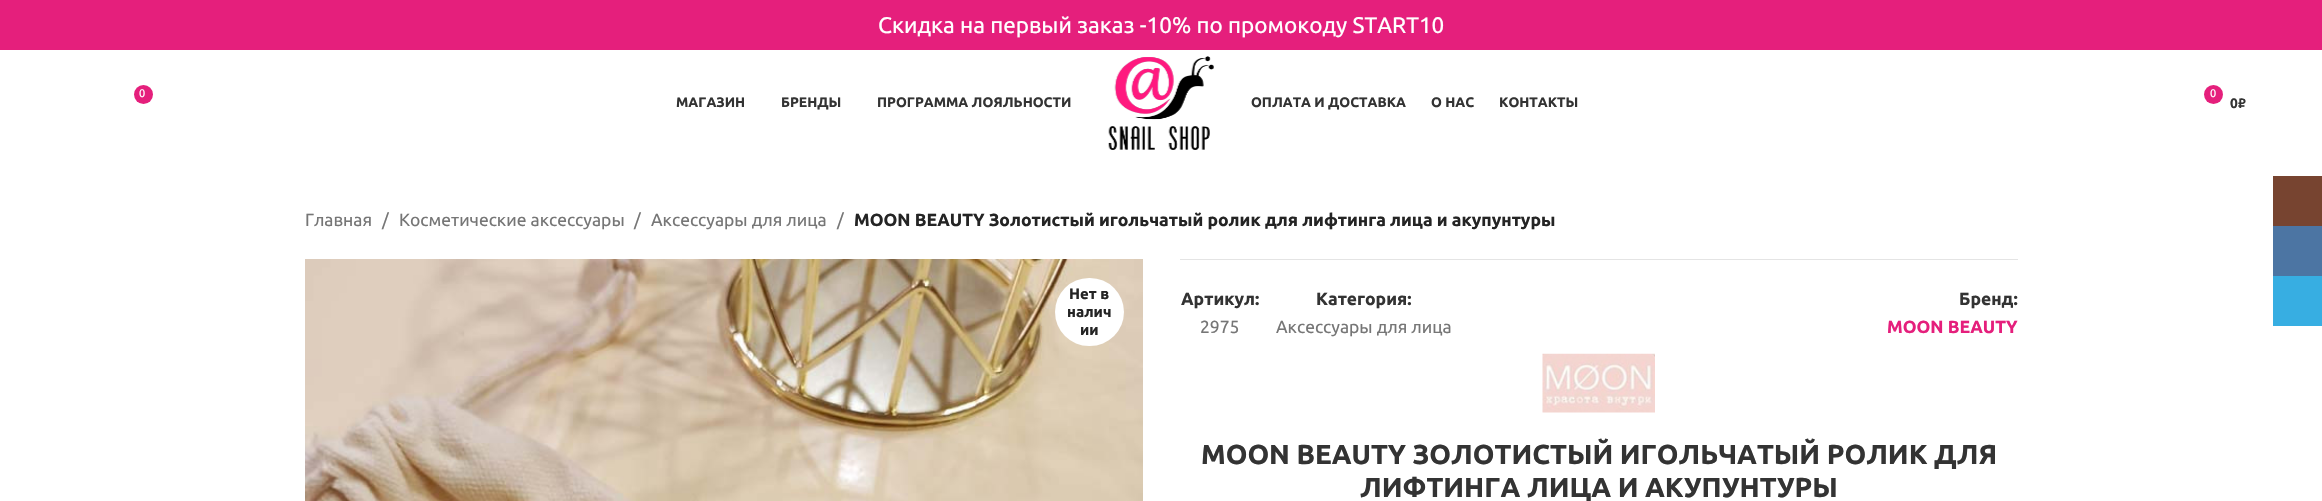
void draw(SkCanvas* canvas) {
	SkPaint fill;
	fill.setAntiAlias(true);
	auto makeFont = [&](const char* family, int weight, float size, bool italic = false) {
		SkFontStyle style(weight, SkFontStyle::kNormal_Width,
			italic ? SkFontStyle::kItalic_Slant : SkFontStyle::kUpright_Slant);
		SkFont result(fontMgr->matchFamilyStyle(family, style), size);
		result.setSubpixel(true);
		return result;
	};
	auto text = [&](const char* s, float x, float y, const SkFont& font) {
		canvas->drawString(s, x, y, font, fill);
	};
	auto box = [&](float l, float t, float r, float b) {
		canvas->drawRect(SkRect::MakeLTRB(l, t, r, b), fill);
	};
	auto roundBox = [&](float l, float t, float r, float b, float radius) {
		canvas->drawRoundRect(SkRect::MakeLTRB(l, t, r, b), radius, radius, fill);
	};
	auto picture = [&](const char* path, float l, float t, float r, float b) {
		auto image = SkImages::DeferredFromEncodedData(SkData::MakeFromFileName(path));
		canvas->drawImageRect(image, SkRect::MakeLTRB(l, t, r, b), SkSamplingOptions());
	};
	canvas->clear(0xFFFFFFFF);
	fill.setColor(0xFFE51F7C);
	box(0, 0, 2322, 50);
	canvas->drawCircle(143.5f, 94.5f, 9.5f, fill);
	picture("image0.png", 1108, 56, 1214, 150);
	canvas->drawCircle(2213.5f, 94.5f, 9.5f, fill);
	picture("image1.png", 305, 259, 1143, 501);
	fill.setColor(0xFFFFFFFF);
	roundBox(1055, 278, 1124, 346, 34);
	fill.setColor(0xFFE4E4E4);
	box(1180, 259, 2018, 260);
	picture("image2.png", 1542, 353, 1655, 413);
	fill.setColor(0xFF774430);
	box(2273, 176, 2322, 226);
	fill.setColor(0xFF4C75A3);
	box(2273, 226, 2322, 276);
	fill.setColor(0xFF37AEE2);
	box(2273, 276, 2322, 326);
	auto font1 = makeFont("Ubuntu", 400, 22.5f);
	fill.setColor(0xFFFFFFFF);
	text("Скидка на первый заказ -10% по промокоду START10", 878, 33, font1);
	auto font2 = makeFont("Ubuntu", 400, 11);
	text("0", 139, 97, font2);
	auto font3 = makeFont("Ubuntu", 700, 13.75f);
	fill.setColor(0xFF333333);
	text("МАГАЗИН", 676, 107, font3);
	text("БРЕНДЫ", 781, 107, font3);
	text("ПРОГРАММА ЛОЯЛЬНОСТИ", 877, 107, font3);
	text("ОПЛАТА И ДОСТАВКА", 1251, 107, font3);
	text("О НАС", 1431, 107, font3);
	text("КОНТАКТЫ", 1499, 107, font3);
	fill.setColor(0xFFFFFFFF);
	text("0", 2210, 97, font2);
	fill.setColor(0xFF333333);
	text("0", 2230, 108, font3);
	auto font4 = makeFont("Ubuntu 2", 700, 13.75f);
	text("₽", 2238, 108, font4);
	auto font5 = makeFont("Ubuntu", 400, 17.5f);
	fill.setColor(0xFF767676);
	text("Главная", 305, 226, font5);
	text("/", 382, 226, font5);
	text("Косметические аксессуары", 399, 226, font5);
	text("/", 634, 226, font5);
	text("Аксессуары для лица", 651, 226, font5);
	text("/", 837, 226, font5);
	auto font6 = makeFont("Ubuntu", 700, 17.5f);
	fill.setColor(0xFF242424);
	text("MOON BEAUTY Золотистый игольчатый ролик для лифтинга лица и акупунтуры", 854, 226, font6);
	auto font7 = makeFont("Ubuntu", 700, 15);
	text("Нет в", 1069, 299, font7);
	text("налич", 1067, 317, font7);
	text("ии", 1080, 335, font7);
	fill.setColor(0xFF333333);
	text("Артикул:", 1181, 305, font6);
	fill.setColor(0xFF767676);
	text("2975", 1200, 333, font5);
	fill.setColor(0xFF333333);
	text("Категория:", 1316, 305, font6);
	fill.setColor(0xFF767676);
	text("Аксессуары для лица", 1276, 333, font5);
	fill.setColor(0xFF333333);
	text("Бренд:", 1959, 305, font6);
	fill.setColor(0xFFE51F7C);
	text("MOON BEAUTY", 1887, 333, font6);
	auto font8 = makeFont("Ubuntu", 700, 27.5f);
	fill.setColor(0xFF333333);
	text("MOON BEAUTY ЗОЛОТИСТЫЙ ИГОЛЬЧАТЫЙ РОЛИК ДЛЯ", 1201, 464, font8);
	text("ЛИФТИНГА ЛИЦА И АКУПУНТУРЫ", 1360, 497, font8);
}
